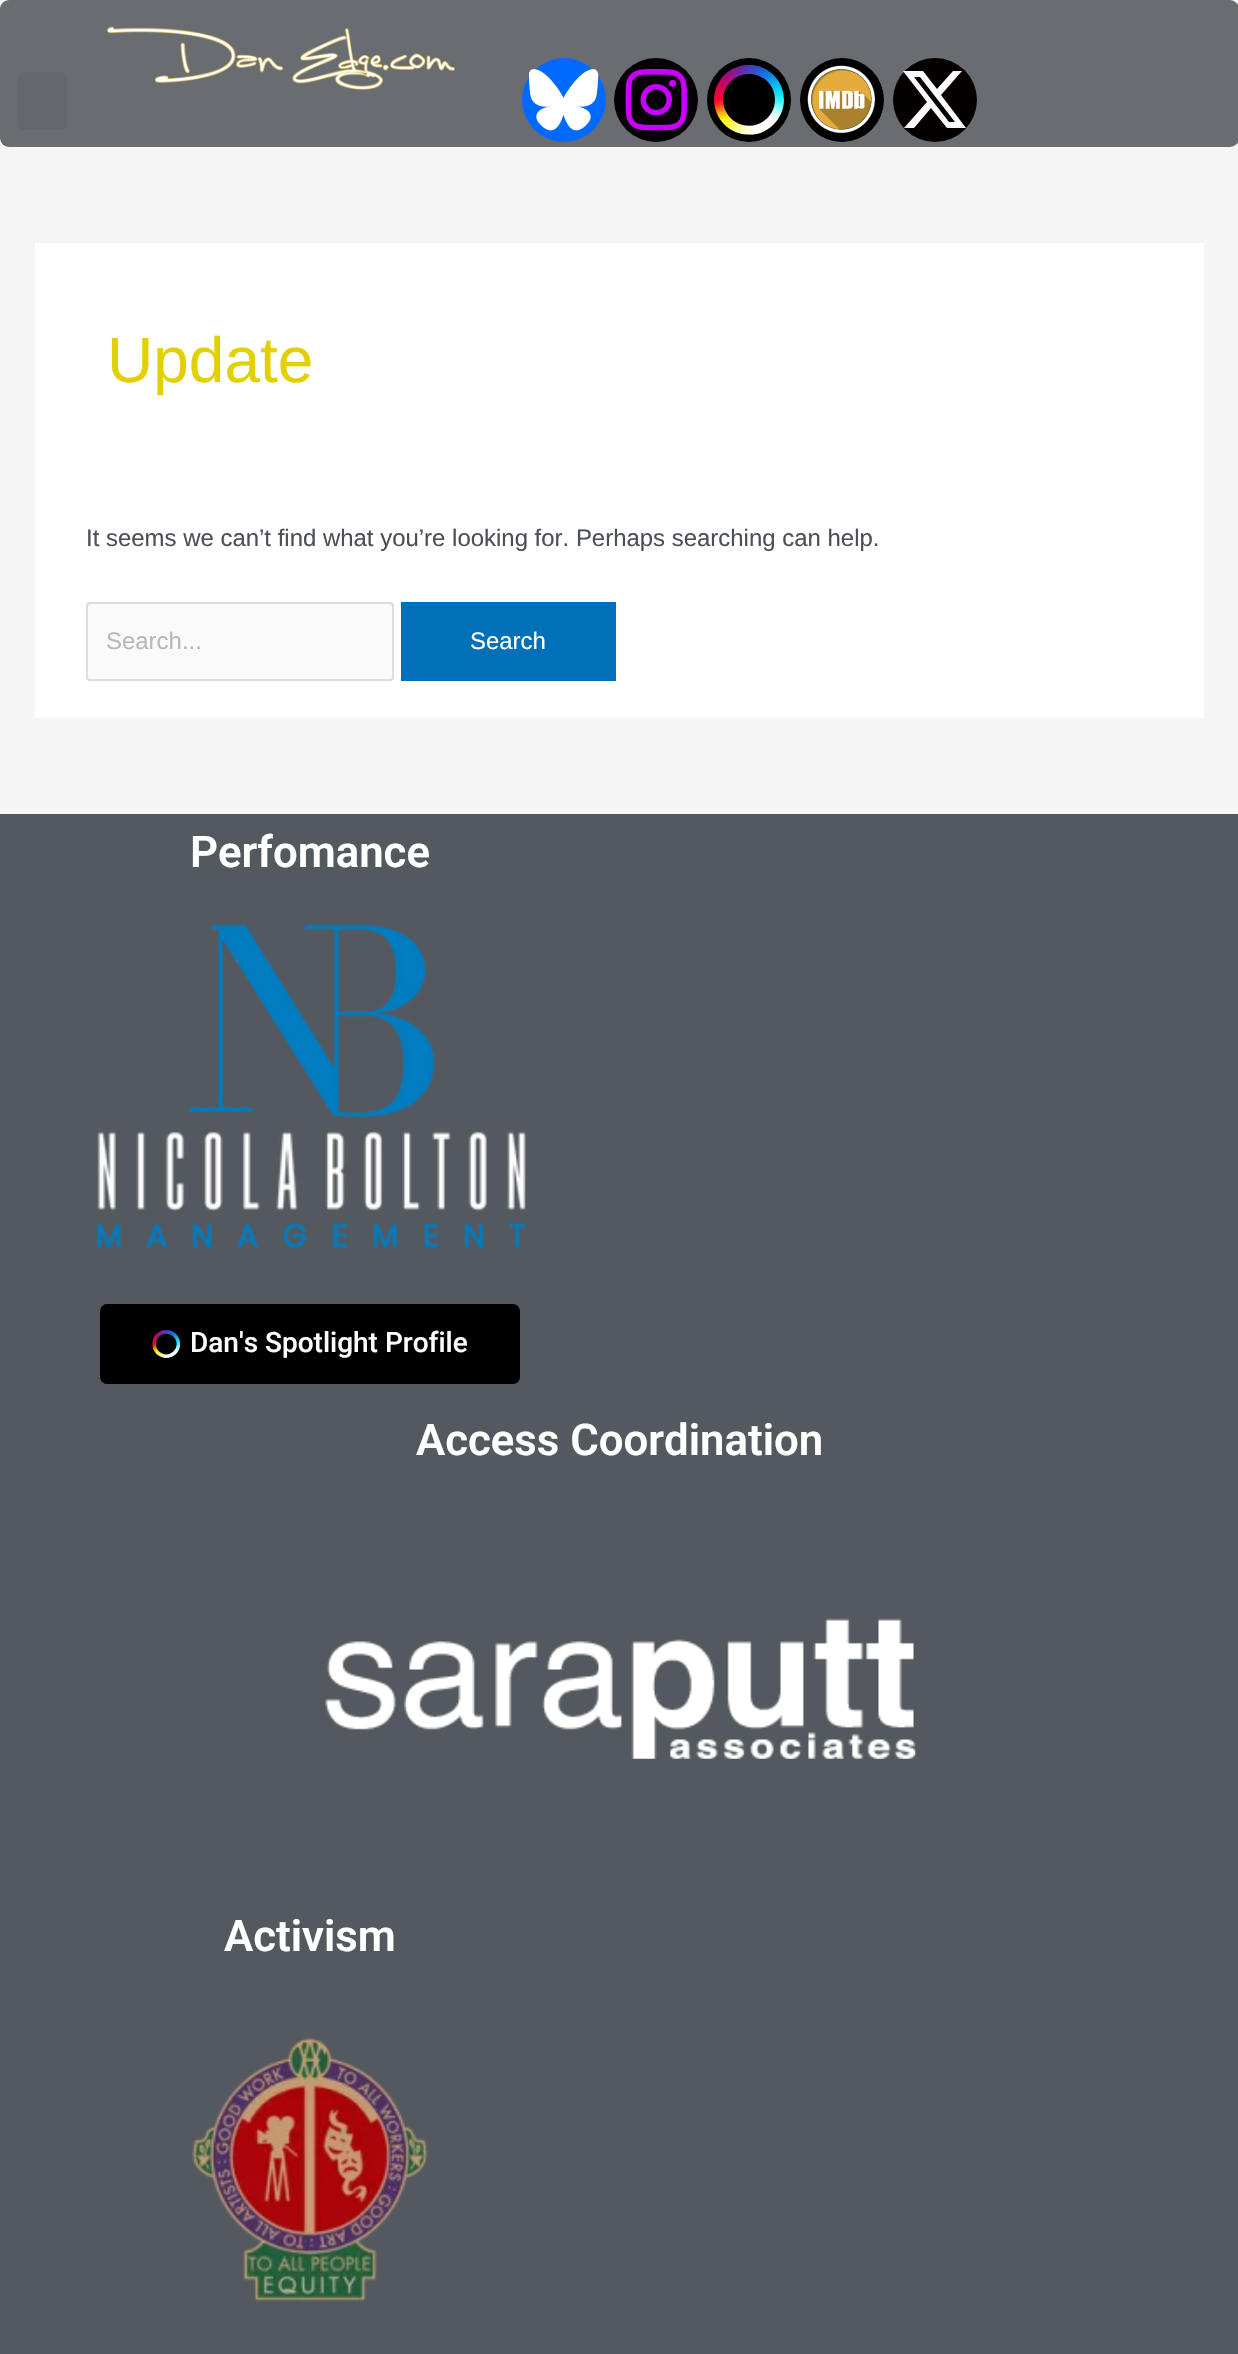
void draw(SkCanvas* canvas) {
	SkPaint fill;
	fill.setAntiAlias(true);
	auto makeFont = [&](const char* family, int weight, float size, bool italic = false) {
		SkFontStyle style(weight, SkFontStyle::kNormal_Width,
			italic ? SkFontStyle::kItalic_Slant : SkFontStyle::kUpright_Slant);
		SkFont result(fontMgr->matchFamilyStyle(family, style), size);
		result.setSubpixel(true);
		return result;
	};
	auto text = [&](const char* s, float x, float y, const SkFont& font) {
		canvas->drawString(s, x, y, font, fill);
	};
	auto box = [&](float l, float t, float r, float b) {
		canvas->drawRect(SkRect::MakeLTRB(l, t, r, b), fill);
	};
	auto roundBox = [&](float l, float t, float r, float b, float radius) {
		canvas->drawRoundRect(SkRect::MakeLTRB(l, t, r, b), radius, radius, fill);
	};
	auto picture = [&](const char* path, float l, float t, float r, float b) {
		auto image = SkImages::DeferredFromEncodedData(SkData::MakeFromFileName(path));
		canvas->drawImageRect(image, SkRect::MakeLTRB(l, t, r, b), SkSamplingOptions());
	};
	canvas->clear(0xFFF5F5F5);
	fill.setColor(0xFF696D72);
	roundBox(0, 0, 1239, 147, 9);
	fill.setColor(0xFF64686C);
	roundBox(18, 72, 67, 130, 5);
	picture("image0.png", 107, 26, 455, 90);
	fill.setColor(0xFF0069FF);
	canvas->drawCircle(564, 100, 42, fill);
	picture("image1.png", 529, 69, 599, 131);
	fill.setColor(0xFF070007);
	canvas->drawCircle(656, 100, 42, fill);
	picture("image2.png", 625, 69, 687, 131);
	fill.setColor(0xFF000000);
	canvas->drawCircle(749, 100, 42, fill);
	picture("image3.png", 714, 65, 784, 135);
	canvas->drawCircle(842, 100, 42, fill);
	picture("image4.png", 807, 65, 875, 133);
	fill.setColor(0xFF050000);
	canvas->drawCircle(935, 100, 42, fill);
	fill.setColor(0xFFFFFFFF);
	canvas->drawPath(SkPathBuilder().moveTo(953, 71).lineTo(962, 71).lineTo(941, 95).lineTo(966, 128).lineTo(947, 128).lineTo(931, 108).lineTo(914, 128).lineTo(904, 128).lineTo(927, 102).lineTo(903, 71).lineTo(923, 71).lineTo(937, 89).close().moveTo(949, 122).lineTo(955, 122).lineTo(920, 77).lineTo(914, 77).close().detach(), fill);
	box(35, 243, 1204, 718);
	fill.setColor(0xFFFAFAFA);
	canvas->drawRoundRect(SkRect::MakeLTRB(87, 603, 393, 680), 3, 3, fill);
	fill.setStyle(SkPaint::kStroke_Style);
	fill.setStrokeWidth(2);
	fill.setColor(0xFFDDDDDD);
	canvas->drawRoundRect(SkRect::MakeLTRB(87, 603, 393, 680), 3, 3, fill);
	fill.setStyle(SkPaint::kFill_Style);
	fill.setColor(0xFF0170B9);
	box(401, 602, 616, 681);
	fill.setColor(0xFF54595F);
	box(0, 814, 1238, 2354);
	picture("image5.png", 96, 923, 527, 1249);
	fill.setColor(0xFF000000);
	roundBox(100, 1304, 520, 1384, 7);
	picture("image6.png", 152, 1330, 180, 1358);
	picture("image7.png", 325, 1618, 916, 1759);
	picture("image8.png", 192, 2038, 428, 2302);
	auto font1 = makeFont("Liberation Sans", 400, 64);
	fill.setColor(0xFFE2D002);
	text("Update", 107, 382, font1);
	auto font2 = makeFont("Liberation Sans", 400, 23.95f);
	fill.setColor(0xFF4B4F58);
	text("It seems we can’t find what you’re looking for. Perhaps searching can help.", 86, 546, font2);
	fill.setColor(0xFFB8B8B8);
	text("Search...", 106, 649, font2);
	fill.setColor(0xFFFFFFFF);
	text("Search", 470, 649, font2);
	auto font3 = makeFont("Roboto", 600, 43.75f);
	text("Perfomance", 190, 867, font3);
	auto font4 = makeFont("Roboto", 500, 28);
	text("Dan's Spotlight Profile", 190, 1352, font4);
	text("Access Coordination", 416, 1455, font3);
	text("Activism", 224, 1951, font3);
}
